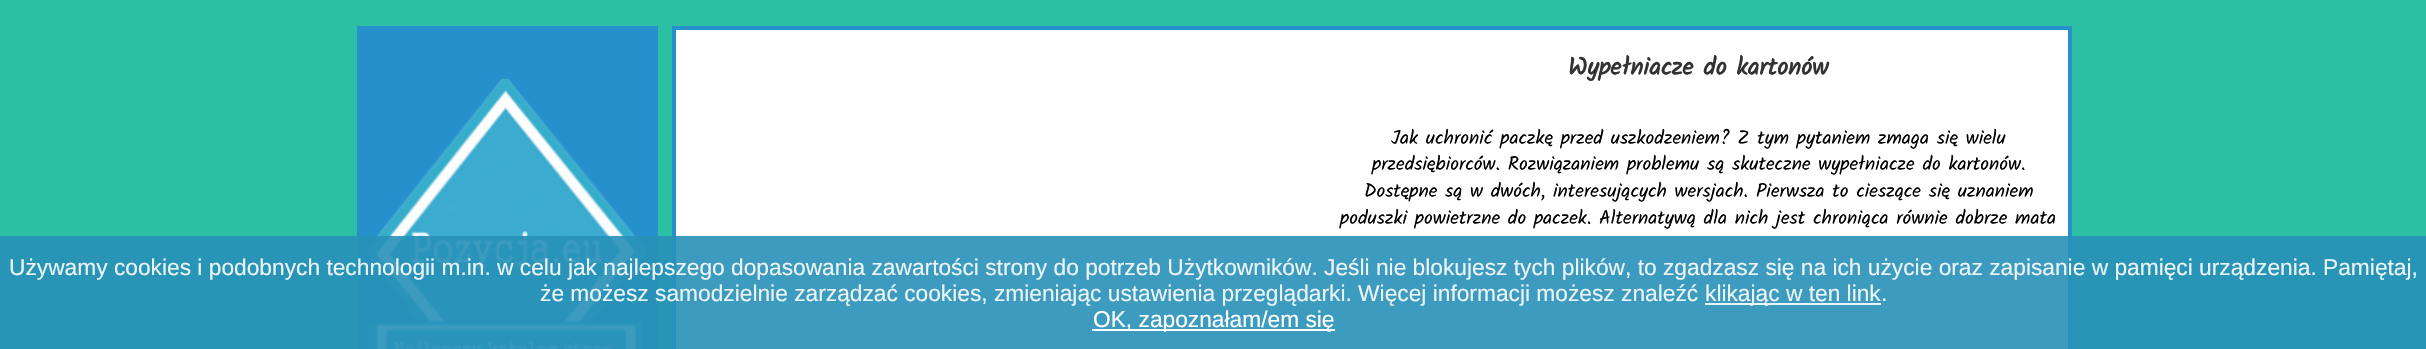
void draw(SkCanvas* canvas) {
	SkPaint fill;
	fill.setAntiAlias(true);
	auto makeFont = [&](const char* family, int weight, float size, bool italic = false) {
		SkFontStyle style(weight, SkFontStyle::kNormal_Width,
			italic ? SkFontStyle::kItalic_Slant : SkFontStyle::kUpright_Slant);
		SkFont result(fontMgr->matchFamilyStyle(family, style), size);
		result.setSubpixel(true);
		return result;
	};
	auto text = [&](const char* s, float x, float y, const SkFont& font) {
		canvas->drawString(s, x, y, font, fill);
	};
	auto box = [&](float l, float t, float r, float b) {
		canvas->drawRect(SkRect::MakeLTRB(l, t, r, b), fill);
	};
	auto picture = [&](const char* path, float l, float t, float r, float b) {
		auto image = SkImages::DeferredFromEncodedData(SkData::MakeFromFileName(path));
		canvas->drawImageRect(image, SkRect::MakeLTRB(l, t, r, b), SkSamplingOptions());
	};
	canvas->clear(0xFF2CBFA4);
	fill.setColor(0xFF2590CC);
	box(357, 26, 658, 349);
	picture("image0.png", 367, 78, 648, 349);
	fill.setColor(0xFFFFFFFF);
	canvas->drawRect(SkRect::MakeLTRB(674, 28, 2070, 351), fill);
	fill.setStyle(SkPaint::kStroke_Style);
	fill.setStrokeWidth(4);
	fill.setColor(0xFF2590CC);
	canvas->drawRect(SkRect::MakeLTRB(674, 28, 2070, 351), fill);
	fill.setStyle(SkPaint::kFill_Style);
	fill.setColor(0xE62790B7);
	box(0, 236, 2426, 349);
	fill.setColor(0xE6FFFFFF);
	box(1705, 303, 1881, 305);
	fill.setColor(0xFFFFFFFF);
	box(1092, 329, 1335, 331);
	auto font1 = makeFont("Kalam", 700, 24.5f);
	fill.setColor(0xFF333333);
	text("Wypełniacze do kartonów", 1568, 75, font1);
	auto font2 = makeFont("Kalam", 400, 19.25f);
	fill.setColor(0xFF000000);
	text("Jak uchronić paczkę przed uszkodzeniem? Z tym pytaniem zmaga się wielu", 1391, 144, font2);
	text("przedsiębiorców. Rozwiązaniem problemu są skuteczne wypełniacze do kartonów.", 1372, 170, font2);
	text("Dostępne są w dwóch, interesujących wersjach. Pierwsza to cieszące się uznaniem", 1364, 197, font2);
	text("poduszki powietrzne do paczek. Alternatywą dla nich jest chroniąca równie dobrze mata", 1340, 224, font2);
	auto font3 = makeFont("Liberation Sans", 400, 22.75f);
	fill.setColor(0xFFEBF5F8);
	text("Używamy cookies i podobnych technologii m.in. w celu jak najlepszego dopasowania zawartości strony do potrzeb Użytkowników. Jeśli nie blokujesz tych plików, to zgadzasz się na ich użycie oraz zapisanie w pamięci urządzenia. Pamiętaj,", 9, 275, font3);
	text("że możesz samodzielnie zarządzać cookies, zmieniając ustawienia przeglądarki. Więcej informacji możesz znaleźć", 540, 301, font3);
	text("klikając w ten link", 1705, 301, font3);
	text(".", 1881, 301, font3);
	fill.setColor(0xFFFFFFFF);
	text("OK, zapoznałam/em się", 1093, 327, font3);
}
